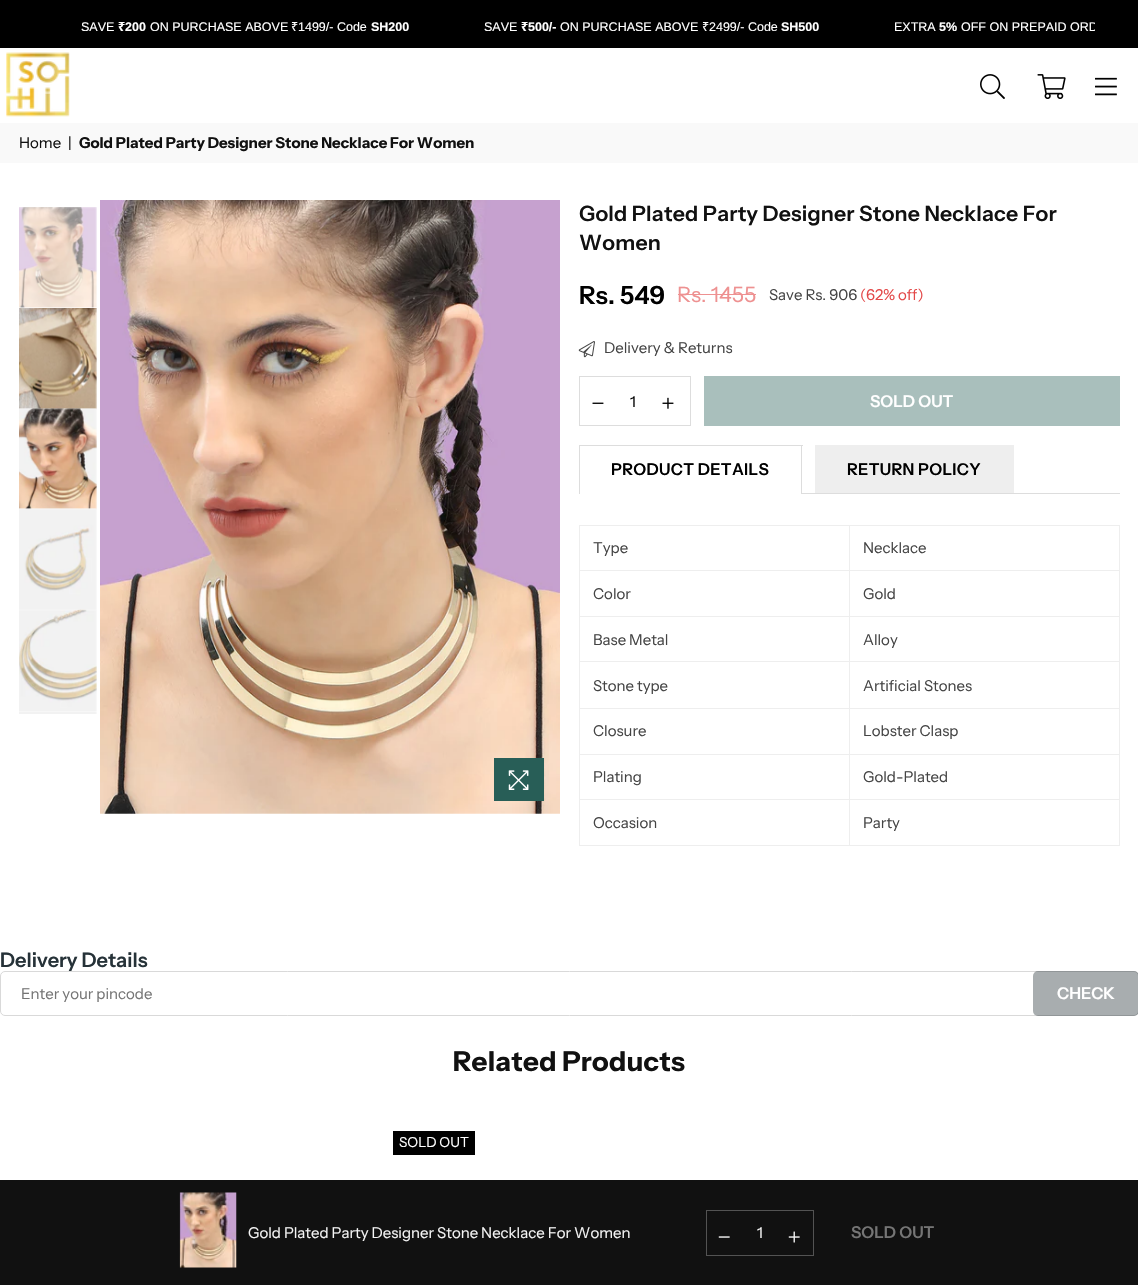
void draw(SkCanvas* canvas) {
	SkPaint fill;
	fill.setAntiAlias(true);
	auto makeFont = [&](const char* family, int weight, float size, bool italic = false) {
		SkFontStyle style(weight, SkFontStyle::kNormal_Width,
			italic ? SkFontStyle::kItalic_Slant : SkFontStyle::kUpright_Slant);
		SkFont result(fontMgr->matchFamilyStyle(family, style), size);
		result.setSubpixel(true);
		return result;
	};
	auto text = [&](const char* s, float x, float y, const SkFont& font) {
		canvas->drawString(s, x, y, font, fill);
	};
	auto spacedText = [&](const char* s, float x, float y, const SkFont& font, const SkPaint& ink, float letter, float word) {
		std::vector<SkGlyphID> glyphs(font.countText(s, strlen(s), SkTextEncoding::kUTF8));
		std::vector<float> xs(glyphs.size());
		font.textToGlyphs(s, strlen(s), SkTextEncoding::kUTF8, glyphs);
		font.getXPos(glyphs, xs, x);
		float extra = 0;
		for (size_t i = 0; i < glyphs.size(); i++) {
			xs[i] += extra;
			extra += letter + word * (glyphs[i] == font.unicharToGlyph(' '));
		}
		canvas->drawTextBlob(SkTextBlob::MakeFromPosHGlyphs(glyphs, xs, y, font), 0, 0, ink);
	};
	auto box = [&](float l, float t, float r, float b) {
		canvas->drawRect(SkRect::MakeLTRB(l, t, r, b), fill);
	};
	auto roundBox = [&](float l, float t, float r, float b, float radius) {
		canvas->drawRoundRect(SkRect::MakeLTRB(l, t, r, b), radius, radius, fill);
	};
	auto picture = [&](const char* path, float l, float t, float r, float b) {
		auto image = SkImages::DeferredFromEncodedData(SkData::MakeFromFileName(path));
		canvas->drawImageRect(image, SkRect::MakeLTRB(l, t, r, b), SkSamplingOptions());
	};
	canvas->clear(0xFFFFFFFF);
	fill.setColor(0xFF000000);
	box(0, 0, 1138, 48);
	picture("image0.png", 6, 52, 70, 117);
	picture("image1.png", 980, 74, 1005, 99);
	picture("image2.png", 1037, 74, 1066, 99);
	picture("image3.png", 1095, 77, 1117, 96);
	fill.setColor(0xFFF9F9F9);
	box(0, 123, 1138, 163);
	picture("image4.png", 19, 207, 97, 309);
	picture("image5.png", 19, 308, 97, 410);
	picture("image6.png", 19, 408, 97, 510);
	picture("image7.png", 19, 508, 97, 611);
	picture("image8.png", 19, 609, 97, 711);
	picture("image9.png", 19, 711, 97, 714);
	picture("image10.png", 100, 200, 560, 814);
	fill.setColor(0xFF285E57);
	box(494, 758, 544, 801);
	picture("image11.png", 508, 770, 529, 790);
	fill.setColor(0xFFEE9191);
	box(678, 294, 756, 295);
	picture("image12.png", 578, 341, 595, 358);
	fill.setStyle(SkPaint::kStroke_Style);
	fill.setStrokeWidth(1);
	fill.setColor(0xFFDDDDDD);
	canvas->drawRect(SkRect::MakeLTRB(579.5f, 376.5f, 690.5f, 425.5f), fill);
	picture("image13.png", 592, 402, 604, 404);
	picture("image14.png", 662, 397, 674, 409);
	fill.setStyle(SkPaint::kFill_Style);
	fill.setColor(0xFFA9BFBC);
	box(704, 376, 1120, 426);
	fill.setColor(0xFFDDDDDD);
	box(579, 493, 1120, 494);
	box(579, 445, 803, 446);
	box(801, 445, 802, 493);
	box(579, 445, 580, 493);
	fill.setColor(0xFFFFFFFF);
	box(580, 493, 801, 494);
	fill.setColor(0xFFEEEEEE);
	box(815, 445, 1014, 493);
	box(849, 525, 1120, 526);
	box(849, 570, 1120, 571);
	box(849, 616, 1120, 617);
	box(849, 661, 1120, 662);
	box(849, 708, 1120, 709);
	box(849, 754, 1120, 755);
	box(849, 799, 1120, 800);
	box(1119, 799, 1120, 846);
	box(849, 845, 1120, 846);
	box(849, 799, 850, 846);
	box(579, 799, 850, 800);
	box(849, 754, 850, 800);
	box(579, 754, 850, 755);
	box(849, 708, 850, 755);
	box(579, 708, 850, 709);
	box(849, 661, 850, 709);
	box(579, 661, 850, 662);
	box(849, 616, 850, 663);
	box(579, 616, 850, 617);
	box(849, 570, 850, 618);
	box(579, 570, 850, 571);
	box(849, 525, 850, 571);
	box(579, 525, 850, 526);
	box(579, 845, 850, 846);
	box(579, 799, 580, 846);
	box(579, 754, 580, 800);
	box(579, 708, 580, 755);
	box(579, 661, 580, 709);
	box(579, 616, 580, 663);
	box(579, 570, 580, 618);
	box(579, 525, 580, 571);
	box(1119, 754, 1120, 800);
	box(1119, 708, 1120, 755);
	box(1119, 661, 1120, 709);
	box(1119, 616, 1120, 663);
	box(1119, 570, 1120, 618);
	box(1119, 525, 1120, 571);
	fill.setColor(0xFF111111);
	box(0, 1180, 1138, 1285);
	picture("image15.png", 179, 1192, 237, 1268);
	fill.setStyle(SkPaint::kStroke_Style);
	fill.setColor(0xFF535353);
	canvas->drawRect(SkRect::MakeLTRB(706.5f, 1210.5f, 813.5f, 1255.5f), fill);
	picture("image16.png", 718, 1236, 730, 1238);
	picture("image17.png", 788, 1231, 800, 1243);
	fill.setStyle(SkPaint::kFill_Style);
	fill.setColor(0xFF000000);
	box(393, 1131, 475, 1155);
	auto font1 = makeFont("Liberation Sans", 400, 12.5f);
	fill.setColor(0xFFFFFFFF);
	text("SAVE", 81, 31, font1);
	auto font2 = makeFont("Noto Sans", 700, 12.5f);
	text("₹", 118, 31, font2);
	auto font3 = makeFont("Liberation Sans", 700, 12.5f);
	text("200", 125, 31, font3);
	text("ON PURCHASE ABOVE", 150, 31, font1);
	auto font4 = makeFont("Noto Sans", 400, 12.5f);
	text("₹", 291, 31, font4);
	text("1499/- Code", 298, 31, font1);
	text("SH200", 371, 31, font3);
	text("SAVE", 484, 31, font1);
	text("₹", 521, 31, font2);
	text("500/-", 528, 31, font3);
	text("ON PURCHASE ABOVE", 560, 31, font1);
	text("₹", 702, 31, font4);
	text("2499/- Code", 709, 31, font1);
	text("SH500", 781, 31, font3);
	text("EXTRA", 894, 31, font1);
	text("5%", 939, 31, font3);
	canvas->save();
	canvas->clipRect(SkRect::MakeLTRB(44, 19, 1095, 35));
	text("OFF ON PREPAID ORD", 961, 31, font1);
	canvas->restore();
	auto font5 = makeFont("Instrument Sans", 400, 15);
	fill.setColor(0xFF111111);
	text("Home", 19, 148, font5);
	text("|", 68, 148, font5);
	auto font6 = makeFont("Instrument Sans", 700, 15);
	text("Gold Plated Party Designer Stone Necklace For Women", 79, 148, font6);
	auto font7 = makeFont("Instrument Sans", 600, 21.25f);
	spacedText("Gold Plated Party Designer Stone Necklace For", 579, 221, font7, fill, 0.2f, 0);
	spacedText("Women", 579, 250, font7, fill, 0.2f, 0);
	auto font8 = makeFont("Instrument Sans", 600, 25);
	fill.setColor(0xFF000000);
	text("Rs. 549", 579, 304, font8);
	auto font9 = makeFont("Instrument Sans", 400, 21.25f);
	fill.setColor(0xFFEE9191);
	text("Rs. 1455", 677, 302, font9);
	fill.setColor(0xFF444444);
	text("Save Rs. 906", 769, 300, font5);
	fill.setColor(0xFFE34848);
	text("(62% off)", 860, 300, font5);
	fill.setColor(0xFF444444);
	text("Delivery & Returns", 604, 353, font5);
	fill.setColor(0xFF000000);
	text("1", 630, 407, font5);
	auto font10 = makeFont("Instrument Sans", 600, 16.25f);
	fill.setColor(0xFFFFFFFF);
	text("SOLD OUT", 870, 407, font10);
	fill.setColor(0xFF000000);
	spacedText("PRODUCT DETAILS", 611, 475, font10, fill, 0.3f, 0);
	spacedText("RETURN POLICY", 847, 475, font10, fill, 0.3f, 0);
	fill.setColor(0xFF444444);
	text("Type", 593, 553, font5);
	text("Necklace", 863, 553, font5);
	text("Color", 593, 599, font5);
	text("Gold", 863, 599, font5);
	text("Base Metal", 593, 645, font5);
	text("Alloy", 863, 645, font5);
	text("Stone type", 593, 691, font5);
	text("Artificial Stones", 863, 691, font5);
	text("Closure", 593, 736, font5);
	text("Lobster Clasp", 863, 736, font5);
	text("Plating", 593, 782, font5);
	text("Gold-Plated", 863, 782, font5);
	text("Occasion", 593, 828, font5);
	text("Party", 863, 828, font5);
	fill.setColor(0xFFF5F5F5);
	text("Gold Plated Party Designer Stone Necklace For Women", 248, 1238, font5);
	text("1", 757, 1238, font5);
	fill.setColor(0xFF757575);
	text("SOLD OUT", 851, 1238, font10);
	auto font11 = makeFont("Instrument Sans", 600, 20);
	fill.setColor(0xFF263238);
	text("Delivery Details", 0, 967, font11);
	fill.setColor(0xFFFFFFFF);
	canvas->drawRoundRect(SkRect::MakeLTRB(0.5f, 971.5f, 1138.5f, 1015.5f), 4.5f, 4.5f, fill);
	fill.setStyle(SkPaint::kStroke_Style);
	fill.setColor(0xFFD9D9D9);
	canvas->drawRoundRect(SkRect::MakeLTRB(0.5f, 971.5f, 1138.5f, 1015.5f), 4.5f, 4.5f, fill);
	fill.setStyle(SkPaint::kFill_Style);
	fill.setColor(0xFF757575);
	text("Enter your pincode", 21, 999, font5);
	fill.setColor(0x66263238);
	roundBox(1033, 971, 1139, 1016, 5);
	fill.setColor(0xFFFFFFFF);
	text("CHECK", 1057, 999, font10);
	auto font12 = makeFont("Instrument Sans", 700, 27.5f);
	fill.setColor(0xFF111111);
	spacedText("Related Products", 453, 1071, font12, fill, 0.25f, 0);
	auto font13 = makeFont("Instrument Sans", 400, 13.75f);
	fill.setColor(0xFFFFFFFF);
	text("SOLD OUT", 399, 1147, font13);
}
